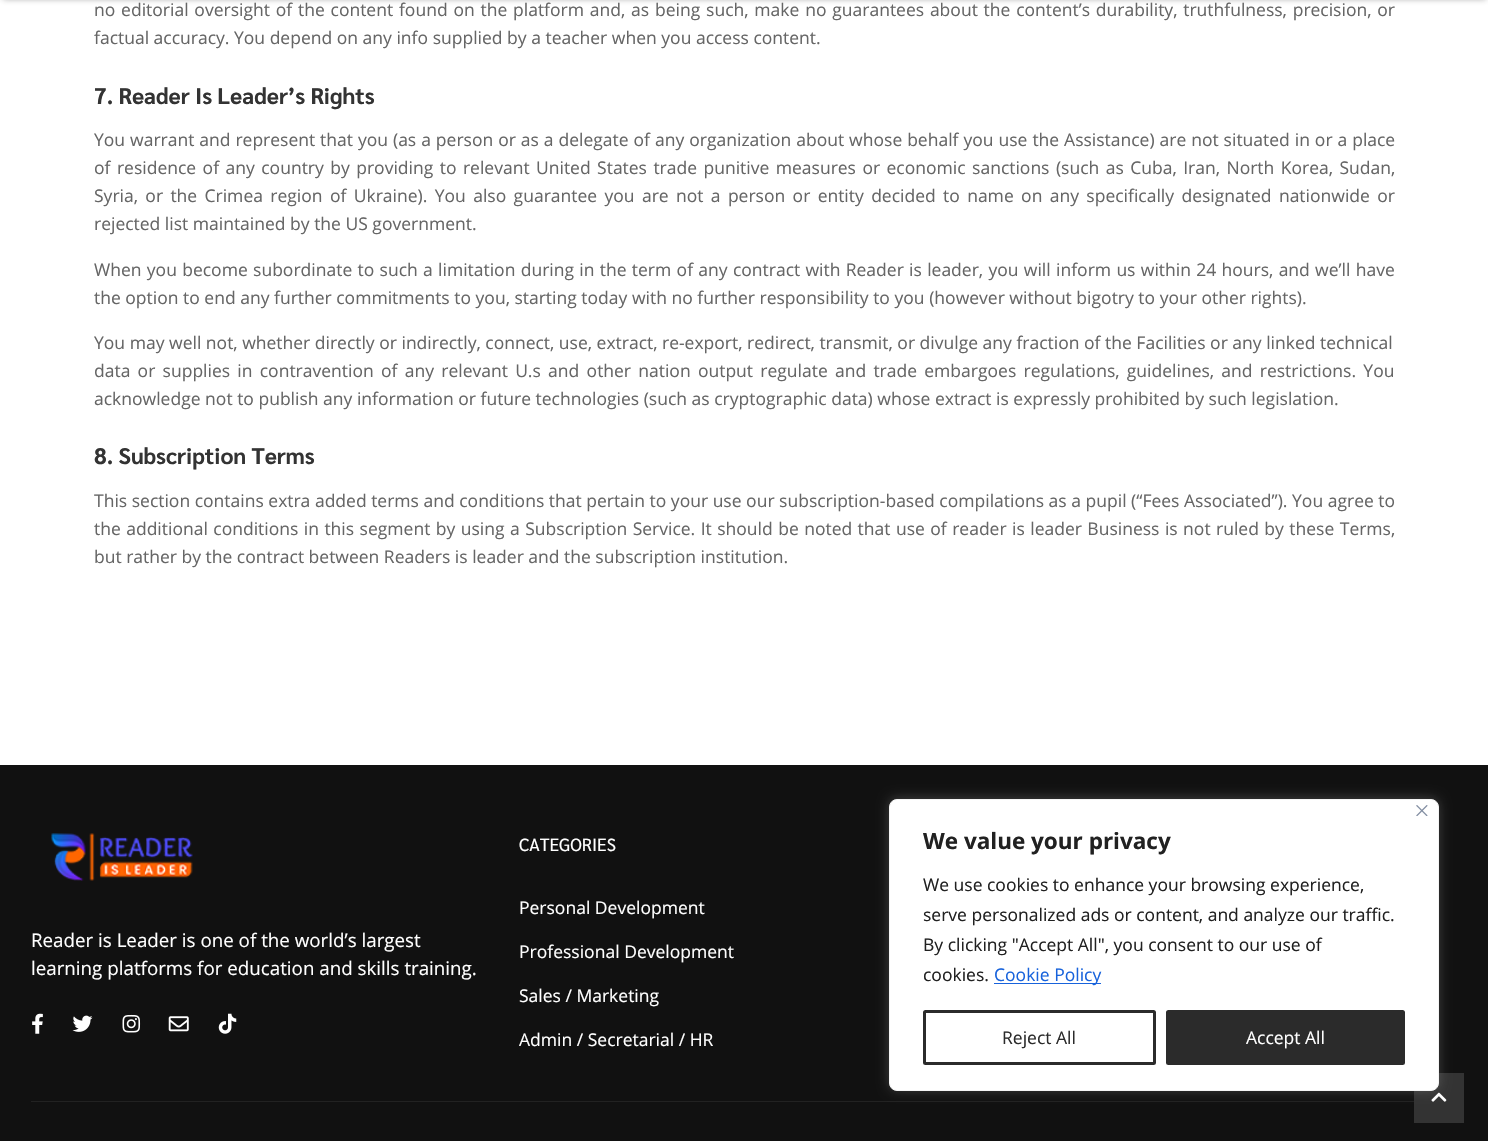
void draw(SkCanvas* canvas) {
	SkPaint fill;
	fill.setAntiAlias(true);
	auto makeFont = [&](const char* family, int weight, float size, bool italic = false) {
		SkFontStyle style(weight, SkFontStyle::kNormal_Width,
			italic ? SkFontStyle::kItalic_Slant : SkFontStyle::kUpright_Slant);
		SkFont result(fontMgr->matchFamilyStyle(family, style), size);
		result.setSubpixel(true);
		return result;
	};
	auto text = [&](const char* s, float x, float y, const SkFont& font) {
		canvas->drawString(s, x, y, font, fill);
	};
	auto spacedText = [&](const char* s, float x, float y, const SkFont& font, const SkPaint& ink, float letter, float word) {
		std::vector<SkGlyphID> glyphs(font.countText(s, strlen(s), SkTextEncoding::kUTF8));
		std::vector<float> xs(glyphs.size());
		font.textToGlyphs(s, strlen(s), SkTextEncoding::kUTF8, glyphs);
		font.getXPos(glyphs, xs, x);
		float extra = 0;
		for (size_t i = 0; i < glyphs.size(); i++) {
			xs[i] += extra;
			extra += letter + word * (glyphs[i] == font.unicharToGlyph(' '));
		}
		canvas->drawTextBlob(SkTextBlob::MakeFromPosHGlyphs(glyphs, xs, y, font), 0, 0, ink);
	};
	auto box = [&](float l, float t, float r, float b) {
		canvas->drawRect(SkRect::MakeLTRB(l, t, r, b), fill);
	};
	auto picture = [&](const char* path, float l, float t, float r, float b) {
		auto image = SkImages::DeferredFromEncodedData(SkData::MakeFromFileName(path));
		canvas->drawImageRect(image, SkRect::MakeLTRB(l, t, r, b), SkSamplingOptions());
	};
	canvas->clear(0xFFFFFFFF);
	fill.setColor(0x662A2A2A);
	fill.setMaskFilter(SkMaskFilter::MakeBlur(kNormal_SkBlurStyle, 3));
	canvas->drawRect(SkRect::MakeLTRB(3, -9, 1486, -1), fill);
	fill.setMaskFilter(nullptr);
	fill.setColor(0xFF111111);
	box(0, 765, 1488, 1141);
	picture("image0.png", 51, 833, 193, 881);
	picture("image1.png", 32, 1013, 43, 1034);
	picture("image2.png", 72, 1015, 93, 1032);
	picture("image3.png", 122, 1014, 141, 1033);
	picture("image4.png", 168, 1016, 189, 1032);
	picture("image5.png", 218, 1013, 237, 1034);
	fill.setColor(0xFF222222);
	box(31, 1101, 1414, 1102);
	fill.setColor(0xFF333333);
	box(1414, 1073, 1464, 1123);
	picture("image6.png", 1431, 1092, 1447, 1102);
	fill.setColor(0x4DACABAB);
	fill.setMaskFilter(SkMaskFilter::MakeBlur(kNormal_SkBlurStyle, 6));
	canvas->drawRoundRect(SkRect::MakeLTRB(889, 798, 1439, 1090), 8, 8, fill);
	fill.setMaskFilter(nullptr);
	fill.setColor(0xFFFFFFFF);
	canvas->drawRoundRect(SkRect::MakeLTRB(889.5f, 799.5f, 1438.5f, 1090.5f), 7.5f, 7.5f, fill);
	fill.setStyle(SkPaint::kStroke_Style);
	fill.setStrokeWidth(1);
	fill.setColor(0xFFF4F4F4);
	canvas->drawRoundRect(SkRect::MakeLTRB(889.5f, 799.5f, 1438.5f, 1090.5f), 7.5f, 7.5f, fill);
	picture("image7.png", 1416, 805, 1428, 816);
	fill.setStyle(SkPaint::kFill_Style);
	fill.setColor(0xFF1863DC);
	box(994, 983, 1101, 984);
	fill.setStyle(SkPaint::kStroke_Style);
	fill.setStrokeWidth(3);
	fill.setColor(0xFF2B2B2B);
	canvas->drawRoundRect(SkRect::MakeLTRB(924.5f, 1011.5f, 1154.5f, 1063.5f), 1, 1, fill);
	fill.setStyle(SkPaint::kFill_Style);
	canvas->drawRoundRect(SkRect::MakeLTRB(1167.5f, 1011.5f, 1403.5f, 1063.5f), 1, 1, fill);
	fill.setStyle(SkPaint::kStroke_Style);
	canvas->drawRoundRect(SkRect::MakeLTRB(1167.5f, 1011.5f, 1403.5f, 1063.5f), 1, 1, fill);
	auto font1 = makeFont("Open Sans", 400, 17.5f);
	fill.setStyle(SkPaint::kFill_Style);
	fill.setColor(0xFF666666);
	spacedText("no editorial oversight of the content found on the platform and, as being such, make no guarantees about the content’s durability, truthfulness, precision, or", 94, 16, font1, fill, 0, 1.25f);
	text("factual accuracy. You depend on any info supplied by a teacher when you access content.", 94, 44, font1);
	auto font2 = makeFont("Sarabun", 700, 22.5f);
	fill.setColor(0xFF333333);
	text("7. Reader Is Leader’s Rights", 94, 104, font2);
	fill.setColor(0xFF666666);
	spacedText("You warrant and represent that you (as a person or as a delegate of any organization about whose behalf you use the Assistance) are not situated in or a place", 94, 146, font1, fill, 0, 0.4f);
	spacedText("of residence of any country by providing to relevant United States trade punitive measures or economic sanctions (such as Cuba, Iran, North Korea, Sudan,", 94, 174, font1, fill, 0, 1.9f);
	spacedText("Syria, or the Crimea region of Ukraine). You also guarantee you are not a person or entity decided to name on any specifically designated nationwide or", 94, 202, font1, fill, 0, 2.8f);
	text("rejected list maintained by the US government.", 94, 230, font1);
	spacedText("When you become subordinate to such a limitation during in the term of any contract with Reader is leader, you will inform us within 24 hours, and we’ll have", 94, 276, font1, fill, 0, 0.75f);
	text("the option to end any further commitments to you, starting today with no further responsibility to you (however without bigotry to your other rights).", 94, 304, font1);
	text("You may well not, whether directly or indirectly, connect, use, extract, re-export, redirect, transmit, or divulge any fraction of the Facilities or any linked technical", 94, 349, font1);
	spacedText("data or supplies in contravention of any relevant U.s and other nation output regulate and trade embargoes regulations, guidelines, and restrictions. You", 94, 377, font1, fill, 0, 2.7f);
	text("acknowledge not to publish any information or future technologies (such as cryptographic data) whose extract is expressly prohibited by such legislation.", 94, 405, font1);
	fill.setColor(0xFF333333);
	text("8. Subscription Terms", 94, 464, font2);
	fill.setColor(0xFF666666);
	text("This section contains extra added terms and conditions that pertain to your use our subscription-based compilations as a pupil (“Fees Associated”). You agree to", 94, 507, font1);
	spacedText("the additional conditions in this segment by using a Subscription Service. It should be noted that use of reader is leader Business is not ruled by these Terms,", 94, 535, font1, fill, 0, 0.9f);
	text("but rather by the contract between Readers is leader and the subscription institution.", 94, 563, font1);
	auto font3 = makeFont("Open Sans", 400, 18.75f);
	fill.setColor(0xFFFFFFFF);
	text("Reader is Leader is one of the world’s largest", 31, 947, font3);
	text("learning platforms for education and skills training.", 31, 975, font3);
	auto font4 = makeFont("Sarabun", 400, 17.5f);
	text("CATEGORIES", 519, 851, font4);
	text("Personal Development", 519, 914, font1);
	text("Professional Development", 519, 958, font1);
	text("Sales / Marketing", 519, 1002, font1);
	text("Admin / Secretarial / HR", 519, 1046, font1);
	auto font5 = makeFont("Open Sans", 700, 22.5f);
	fill.setColor(0xFF212121);
	text("We value your privacy", 923, 849, font5);
	text("We use cookies to enhance your browsing experience,", 923, 891, font1);
	text("serve personalized ads or content, and analyze our traffic.", 923, 921, font1);
	text("By clicking \"Accept All\", you consent to our use of", 923, 951, font1);
	text("cookies.", 923, 981, font1);
	fill.setColor(0xFF1863DC);
	text("Cookie Policy", 994, 981, font1);
	fill.setColor(0xFF2B2B2B);
	text("Reject All", 1002, 1044, font1);
	fill.setColor(0xFFFFFFFF);
	text("Accept All", 1246, 1044, font1);
}
